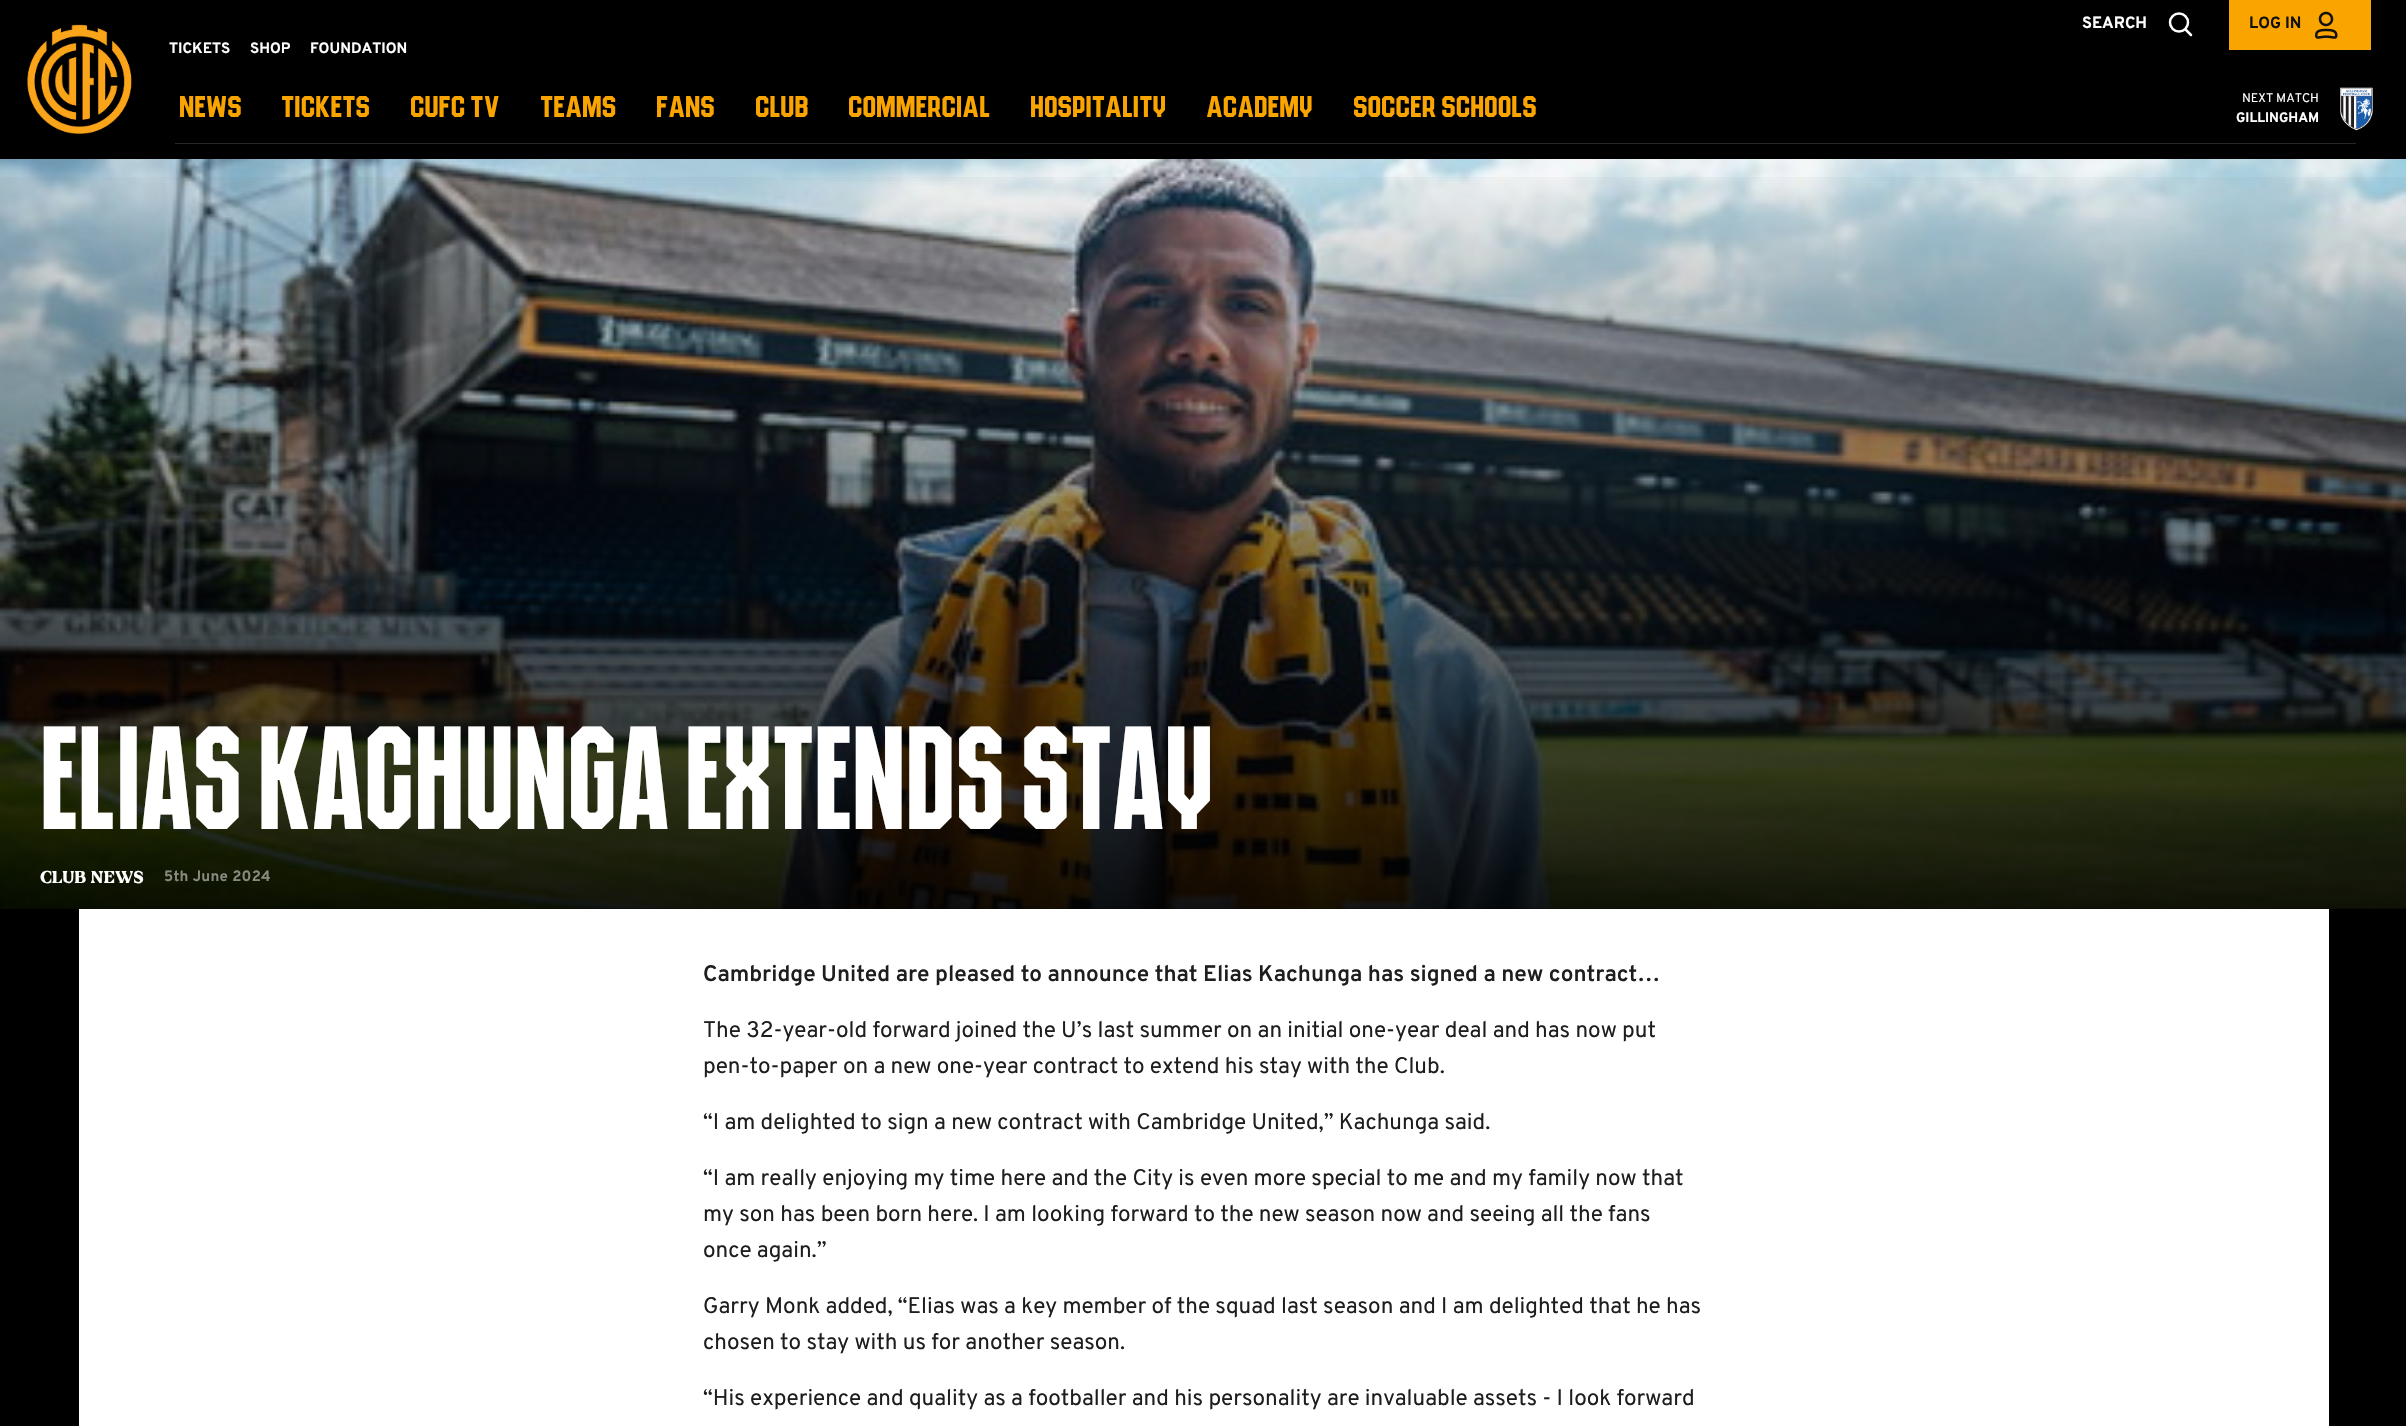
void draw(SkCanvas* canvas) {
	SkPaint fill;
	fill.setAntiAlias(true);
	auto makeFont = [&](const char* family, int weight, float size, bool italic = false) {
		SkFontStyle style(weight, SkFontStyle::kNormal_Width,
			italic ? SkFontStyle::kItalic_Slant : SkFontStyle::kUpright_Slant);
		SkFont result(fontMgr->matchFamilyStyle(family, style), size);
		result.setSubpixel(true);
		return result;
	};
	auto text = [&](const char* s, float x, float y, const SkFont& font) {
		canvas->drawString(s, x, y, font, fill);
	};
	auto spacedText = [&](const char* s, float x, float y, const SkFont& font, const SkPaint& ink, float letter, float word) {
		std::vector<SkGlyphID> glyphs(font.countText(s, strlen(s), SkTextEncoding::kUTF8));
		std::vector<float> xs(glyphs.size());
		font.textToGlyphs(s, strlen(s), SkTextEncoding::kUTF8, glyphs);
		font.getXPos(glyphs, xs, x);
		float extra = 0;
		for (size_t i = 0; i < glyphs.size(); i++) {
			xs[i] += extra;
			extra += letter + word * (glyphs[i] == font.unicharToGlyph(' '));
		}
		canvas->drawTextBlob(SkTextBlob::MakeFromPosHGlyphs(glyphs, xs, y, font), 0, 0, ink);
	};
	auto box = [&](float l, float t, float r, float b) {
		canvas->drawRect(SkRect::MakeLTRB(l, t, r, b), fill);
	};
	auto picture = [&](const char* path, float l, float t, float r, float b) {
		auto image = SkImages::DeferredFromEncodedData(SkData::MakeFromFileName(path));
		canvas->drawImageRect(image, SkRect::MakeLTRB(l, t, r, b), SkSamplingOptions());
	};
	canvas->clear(0xFF000000);
	picture("image0.png", 27, 24, 132, 134);
	fill.setStyle(SkPaint::kStroke_Style);
	fill.setStrokeWidth(2.5f);
	fill.setColor(0xFFFFFFFF);
	canvas->drawCircle(2179, 22.5f, 9, fill);
	fill.setStrokeCap(SkPaint::kRound_Cap);
	canvas->drawPath(SkPathBuilder().moveTo(2185.5f, 29.5f).lineTo(2191, 35).detach(), fill);
	fill.setStyle(SkPaint::kFill_Style);
	fill.setColor(0xFFFAA400);
	box(2229, 0, 2371, 50);
	picture("image1.png", 2315, 11, 2338, 39);
	picture("image2.png", 2340, 87, 2373, 131);
	fill.setColor(0xFF282828);
	box(175, 143, 2356, 144);
	picture("image3.png", 0, 159, 2406, 909);
	{
		const SkColor colors[] = {0x00000000, 0xE6000000};
		const float stops[] = {0, 1};
		const SkPoint ends[] = {{1203, 159}, {1203, 909}};
		fill.setShader(SkGradientShader::MakeLinear(ends, colors, stops, 2, SkTileMode::kClamp));
		fill.setAlpha(255);
	}
	box(0, 177, 2406, 909);
	fill.setShader(nullptr);
	fill.setColor(0xFFFFFFFF);
	box(79, 909, 2329, 1426);
	auto font1 = makeFont("Overpass", 700, 16.25f);
	text("SEARCH", 2082, 28, font1);
	fill.setColor(0xFF111111);
	text("LOG IN", 2249, 28, font1);
	auto font2 = makeFont("Overpass", 700, 15);
	fill.setColor(0xFFFFFFFF);
	text("TICKETS", 169, 53, font2);
	text("SHOP", 250, 53, font2);
	text("FOUNDATION", 310, 53, font2);
	auto font3 = makeFont("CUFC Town", 400, 26.25f);
	fill.setColor(0xFFFAA400);
	text("NEWS", 179, 117, font3);
	text("TICKETS", 281, 117, font3);
	text("CUFC TV", 410, 117, font3);
	text("TEAMS", 540, 117, font3);
	text("FANS", 656, 117, font3);
	text("CLUB", 755, 117, font3);
	text("COMMERCIAL", 848, 117, font3);
	text("HOSPITALITY", 1030, 117, font3);
	text("ACADEMY", 1206, 117, font3);
	text("SOCCER SCHOOLS", 1353, 117, font3);
	auto font4 = makeFont("Overpass", 400, 12.5f);
	fill.setColor(0xFFFFFFFF);
	text("NEXT MATCH", 2242, 102, font4);
	auto font5 = makeFont("Overpass", 700, 13.75f);
	text("GILLINGHAM", 2236, 122, font5);
	auto font6 = makeFont("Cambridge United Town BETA", 400, 128.25f);
	text("ELIAS KACHUNGA EXTENDS STAY", 40, 829, font6);
	auto font7 = makeFont("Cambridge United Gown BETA", 400, 15);
	spacedText("Club News", 40, 883, font7, fill, 0.25f, 0);
	fill.setColor(0xFF878B80);
	spacedText("5th June 2024", 164, 881, font2, fill, 0.25f, 0);
	auto font8 = makeFont("Overpass", 600, 22.5f);
	fill.setColor(0xFF1E1E1E);
	text("Cambridge United are pleased to announce that Elias Kachunga has signed a new contract…", 703, 981, font8);
	auto font9 = makeFont("Overpass", 400, 22.5f);
	text("The 32-year-old forward joined the U’s last summer on an initial one-year deal and has now put", 703, 1037, font9);
	text("pen-to-paper on a new one-year contract to extend his stay with the Club.", 703, 1073, font9);
	text("“I am delighted to sign a new contract with Cambridge United,” Kachunga said.", 703, 1129, font9);
	text("“I am really enjoying my time here and the City is even more special to me and my family now that", 703, 1185, font9);
	text("my son has been born here. I am looking forward to the new season now and seeing all the fans", 703, 1221, font9);
	text("once again.”", 703, 1257, font9);
	text("Garry Monk added, “Elias was a key member of the squad last season and I am delighted that he has", 703, 1313, font9);
	text("chosen to stay with us for another season.", 703, 1349, font9);
	text("“His experience and quality as a footballer and his personality are invaluable assets - I look forward", 703, 1405, font9);
}
